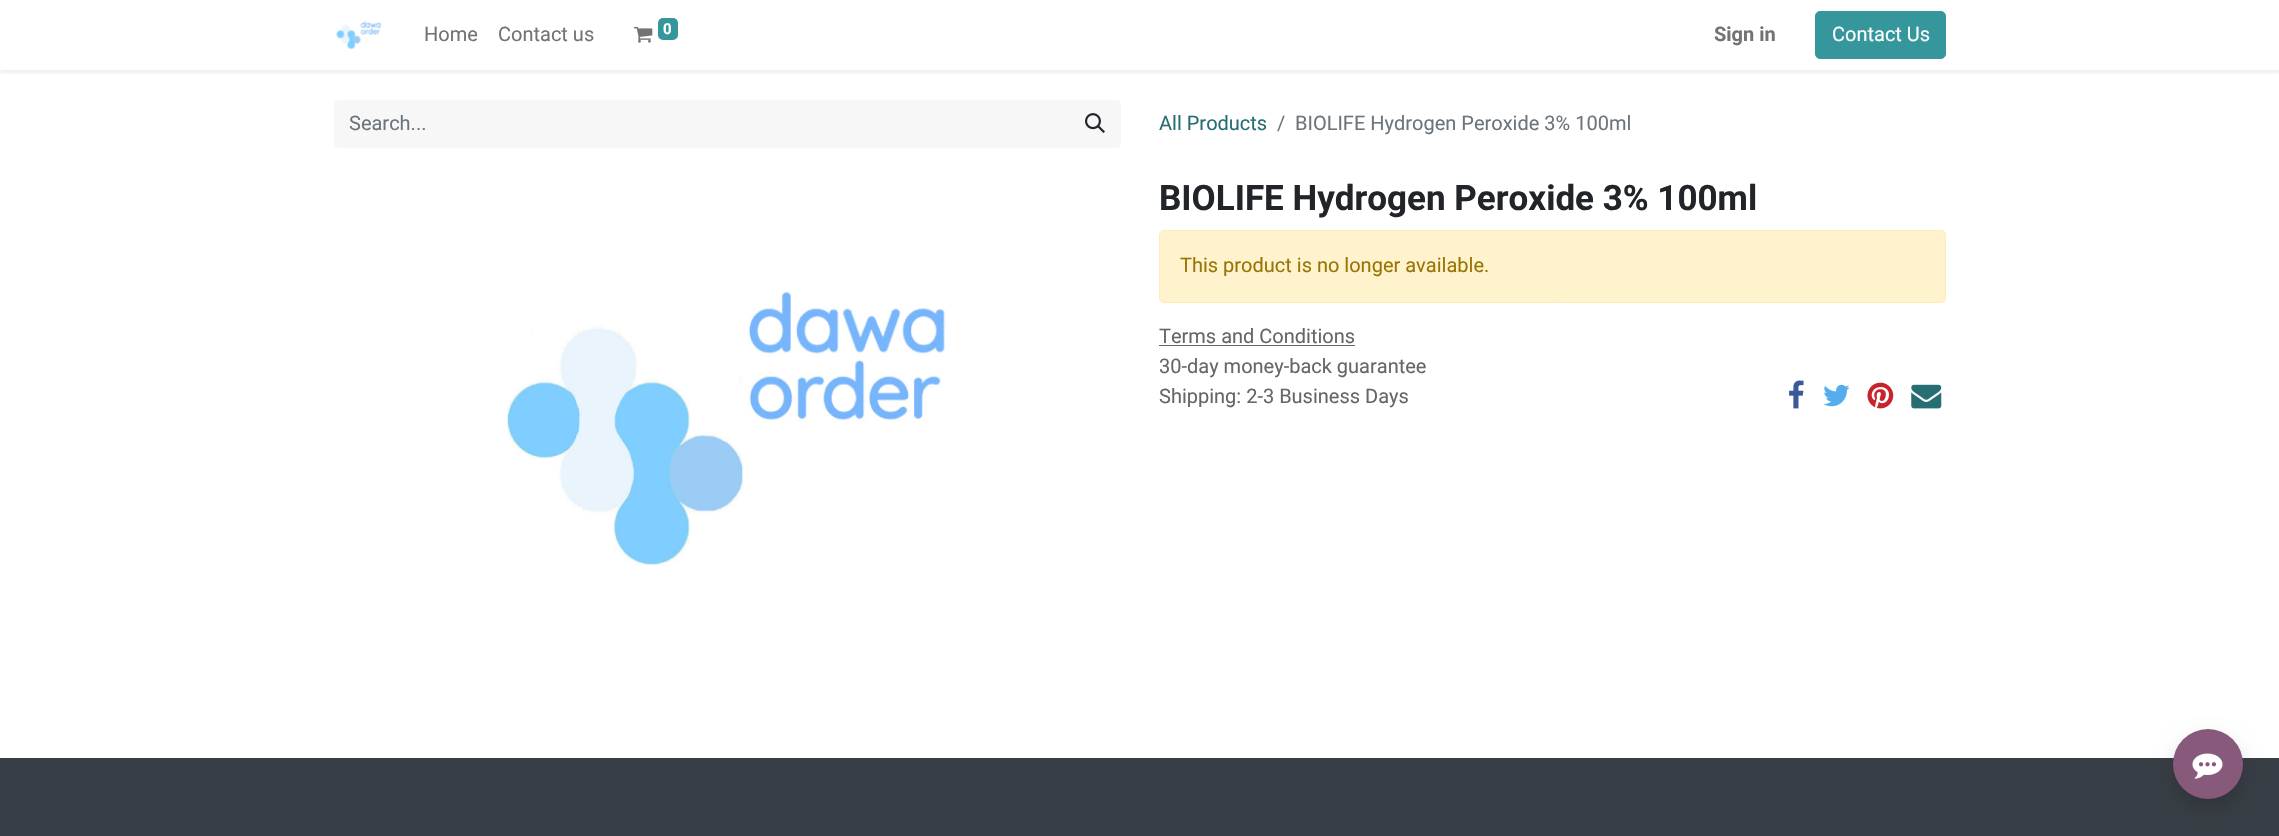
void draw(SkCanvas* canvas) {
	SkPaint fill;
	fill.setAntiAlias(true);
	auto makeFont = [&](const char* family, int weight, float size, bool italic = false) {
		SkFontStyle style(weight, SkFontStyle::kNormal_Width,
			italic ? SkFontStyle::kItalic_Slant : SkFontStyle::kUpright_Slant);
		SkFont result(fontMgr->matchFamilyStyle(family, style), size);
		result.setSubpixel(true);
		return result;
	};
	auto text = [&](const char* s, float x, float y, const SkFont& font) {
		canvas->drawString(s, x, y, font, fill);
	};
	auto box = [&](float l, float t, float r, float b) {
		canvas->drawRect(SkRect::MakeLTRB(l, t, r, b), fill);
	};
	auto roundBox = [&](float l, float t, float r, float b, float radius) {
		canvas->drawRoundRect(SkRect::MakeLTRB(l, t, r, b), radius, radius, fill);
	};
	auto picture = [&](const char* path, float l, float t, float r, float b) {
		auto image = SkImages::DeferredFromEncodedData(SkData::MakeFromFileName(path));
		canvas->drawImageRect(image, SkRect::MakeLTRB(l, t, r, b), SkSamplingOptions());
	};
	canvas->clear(0xFFFFFFFF);
	canvas->save();
	canvas->clipRect(SkRect::MakeLTRB(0, 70, 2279, 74));
	fill.setColor(0x12000000);
	fill.setMaskFilter(SkMaskFilter::MakeBlur(kNormal_SkBlurStyle, 2.5f));
	canvas->drawRect(SkRect::MakeLTRB(0, 3, 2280, 73), fill);
	fill.setMaskFilter(nullptr);
	canvas->restore();
	picture("image0.png", 336, 21, 382, 50);
	picture("image1.png", 633, 26, 653, 43);
	fill.setColor(0xFF35979C);
	roundBox(658, 18, 678, 40, 5);
	canvas->drawRoundRect(SkRect::MakeLTRB(1815.5f, 11.5f, 1945.5f, 58.5f), 4.5f, 4.5f, fill);
	fill.setStyle(SkPaint::kStroke_Style);
	fill.setStrokeWidth(1);
	canvas->drawRoundRect(SkRect::MakeLTRB(1815.5f, 11.5f, 1945.5f, 58.5f), 4.5f, 4.5f, fill);
	fill.setStyle(SkPaint::kFill_Style);
	fill.setColor(0xFFF7F7F7);
	canvas->drawPath(SkPathBuilder().moveTo(339, 100).lineTo(1070, 100).lineTo(1070, 148).lineTo(339, 148).cubicTo(336, 148, 334, 146, 334, 143).lineTo(334, 105).cubicTo(334, 102, 336, 100, 339, 100).close().detach(), fill);
	canvas->drawPath(SkPathBuilder().moveTo(1069, 100).lineTo(1116, 100).cubicTo(1119, 100, 1121, 102, 1121, 105).lineTo(1121, 143).cubicTo(1121, 146, 1119, 148, 1116, 148).lineTo(1069, 148).close().detach(), fill);
	picture("image2.png", 1085, 113, 1105, 133);
	picture("image3.png", 506, 291, 946, 566);
	fill.setColor(0xFFFFF3CD);
	canvas->drawRoundRect(SkRect::MakeLTRB(1159.5f, 230.5f, 1945.5f, 302.5f), 4.5f, 4.5f, fill);
	fill.setStyle(SkPaint::kStroke_Style);
	fill.setColor(0xFFFFECB5);
	canvas->drawRoundRect(SkRect::MakeLTRB(1159.5f, 230.5f, 1945.5f, 302.5f), 4.5f, 4.5f, fill);
	fill.setStyle(SkPaint::kFill_Style);
	fill.setColor(0xFF646669);
	box(1159, 345, 1355, 346);
	picture("image4.png", 1789, 380, 1804, 409);
	picture("image5.png", 1823, 384, 1850, 407);
	picture("image6.png", 1867, 382, 1894, 409);
	picture("image7.png", 1911, 384, 1942, 409);
	fill.setColor(0xFF383E45);
	box(0, 758, 2279, 836);
	fill.setColor(0x26000000);
	fill.setMaskFilter(SkMaskFilter::MakeBlur(kNormal_SkBlurStyle, 10));
	canvas->drawRoundRect(SkRect::MakeLTRB(2173, 739, 2243, 809), 35, 35, fill);
	fill.setMaskFilter(nullptr);
	fill.setColor(0xFF875A7B);
	canvas->drawCircle(2208, 764, 35, fill);
	picture("image8.png", 2192, 753, 2223, 779);
	auto font1 = makeFont("Roboto", 400, 20);
	fill.setColor(0xFF737373);
	text("Home", 424, 41, font1);
	text("Contact us", 498, 41, font1);
	auto font2 = makeFont("Roboto", 700, 15);
	fill.setColor(0xFFFFFFFF);
	text("0", 663, 34, font2);
	auto font3 = makeFont("Roboto", 700, 20);
	fill.setColor(0xFF737373);
	text("Sign in", 1714, 41, font3);
	fill.setColor(0xFFFFFFFF);
	text("Contact Us", 1832, 41, font1);
	fill.setColor(0xFF6C757D);
	text("Search...", 349, 130, font1);
	fill.setColor(0xFF276E72);
	text("All Products", 1159, 130, font1);
	fill.setColor(0xFF6C757D);
	text("/", 1277, 130, font1);
	text("BIOLIFE Hydrogen Peroxide 3% 100ml", 1295, 130, font1);
	auto font4 = makeFont("Roboto", 700, 35);
	fill.setColor(0xFF212529);
	text("BIOLIFE Hydrogen Peroxide 3% 100ml", 1159, 210, font4);
	fill.setColor(0xFF997404);
	text("This product is no longer available.", 1180, 272, font1);
	fill.setColor(0xFF646669);
	text("Terms and Conditions", 1159, 343, font1);
	text("30-day money-back guarantee", 1159, 373, font1);
	text("Shipping: 2-3 Business Days", 1159, 403, font1);
}
